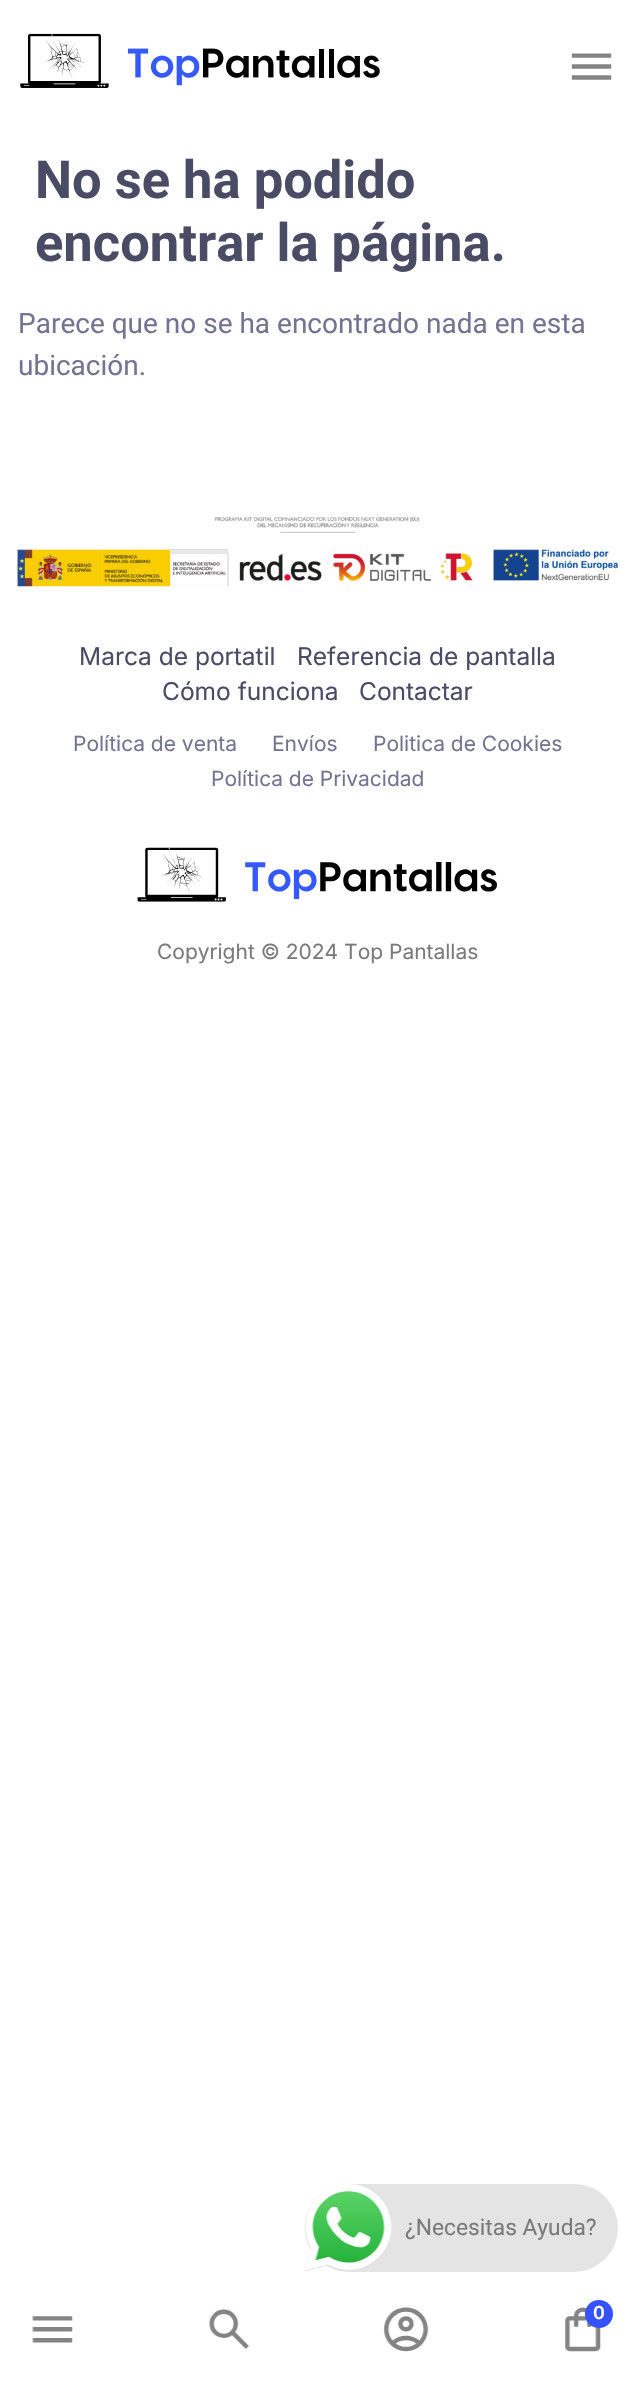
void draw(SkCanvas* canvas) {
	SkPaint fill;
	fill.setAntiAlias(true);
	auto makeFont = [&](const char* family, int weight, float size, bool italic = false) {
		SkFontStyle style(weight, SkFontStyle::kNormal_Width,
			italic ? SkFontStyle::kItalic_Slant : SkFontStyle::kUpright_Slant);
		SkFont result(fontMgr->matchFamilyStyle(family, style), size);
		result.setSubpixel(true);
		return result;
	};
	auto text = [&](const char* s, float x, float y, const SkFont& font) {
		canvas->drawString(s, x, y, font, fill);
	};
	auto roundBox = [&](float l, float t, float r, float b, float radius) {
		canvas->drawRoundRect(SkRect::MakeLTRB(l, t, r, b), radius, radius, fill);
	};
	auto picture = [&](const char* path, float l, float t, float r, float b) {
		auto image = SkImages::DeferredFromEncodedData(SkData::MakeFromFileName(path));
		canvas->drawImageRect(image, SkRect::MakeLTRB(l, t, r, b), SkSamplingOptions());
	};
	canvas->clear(0xFFFFFFFF);
	picture("image0.png", 17, 517, 618, 587);
	picture("image1.png", 137, 847, 497, 902);
	fill.setColor(0xFFE4E4E4);
	roundBox(305, 2184, 618, 2272, 44);
	picture("image2.png", 304, 2184, 392, 2271);
	picture("image3.png", 20, 33, 380, 88);
	picture("image4.png", 571, 53, 612, 80);
	picture("image5.png", 32, 2316, 73, 2343);
	picture("image6.png", 209, 2309, 250, 2349);
	picture("image7.png", 383, 2307, 429, 2352);
	picture("image8.png", 565, 2307, 601, 2352);
	fill.setColor(0xFF3452FE);
	canvas->drawCircle(599, 2314, 14, fill);
	auto font1 = makeFont("Roboto", 700, 52.5f);
	fill.setColor(0xFF4A4B65);
	text("No se ha podido", 35, 198, font1);
	text("encontrar la página.", 35, 261, font1);
	auto font2 = makeFont("Roboto", 400, 28);
	fill.setColor(0xFF737491);
	text("Parece que no se ha encontrado nada en esta", 18, 333, font2);
	text("ubicación.", 18, 375, font2);
	auto font3 = makeFont("Inter", 400, 24.5f);
	fill.setColor(0xFF4A4B65);
	text("Marca de portatil", 79, 665, font3);
	text("Referencia de pantalla", 297, 665, font3);
	text("Cómo funciona", 162, 700, font3);
	text("Contactar", 359, 700, font3);
	auto font4 = makeFont("Inter", 400, 21);
	fill.setColor(0xFF737491);
	text("Política de venta", 73, 751, font4);
	text("Envíos", 272, 751, font4);
	text("Politica de Cookies", 373, 751, font4);
	text("Política de Privacidad", 211, 786, font4);
	fill.setColor(0xFF7A7A7A);
	text("Copyright © 2024 Top Pantallas", 157, 959, font4);
	auto font5 = makeFont("Roboto", 400, 22.75f);
	text("¿Necesitas Ayuda?", 405, 2235, font5);
	auto font6 = makeFont("Inter", 600, 18);
	fill.setColor(0xFFFFFFFF);
	text("0", 593, 2319, font6);
}
